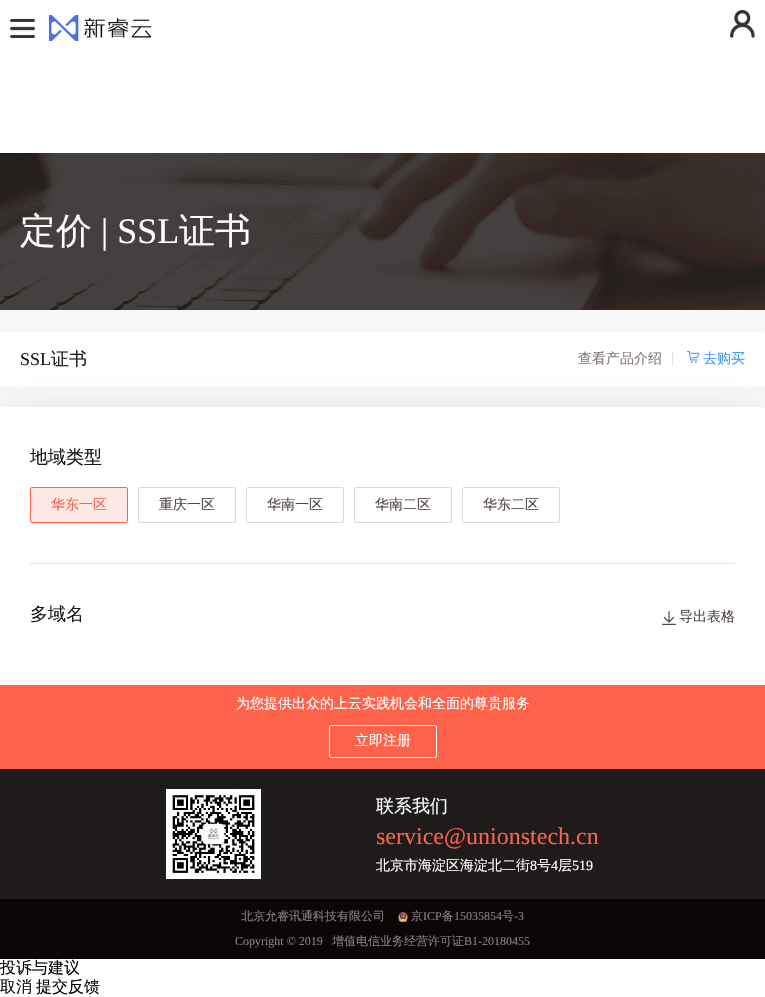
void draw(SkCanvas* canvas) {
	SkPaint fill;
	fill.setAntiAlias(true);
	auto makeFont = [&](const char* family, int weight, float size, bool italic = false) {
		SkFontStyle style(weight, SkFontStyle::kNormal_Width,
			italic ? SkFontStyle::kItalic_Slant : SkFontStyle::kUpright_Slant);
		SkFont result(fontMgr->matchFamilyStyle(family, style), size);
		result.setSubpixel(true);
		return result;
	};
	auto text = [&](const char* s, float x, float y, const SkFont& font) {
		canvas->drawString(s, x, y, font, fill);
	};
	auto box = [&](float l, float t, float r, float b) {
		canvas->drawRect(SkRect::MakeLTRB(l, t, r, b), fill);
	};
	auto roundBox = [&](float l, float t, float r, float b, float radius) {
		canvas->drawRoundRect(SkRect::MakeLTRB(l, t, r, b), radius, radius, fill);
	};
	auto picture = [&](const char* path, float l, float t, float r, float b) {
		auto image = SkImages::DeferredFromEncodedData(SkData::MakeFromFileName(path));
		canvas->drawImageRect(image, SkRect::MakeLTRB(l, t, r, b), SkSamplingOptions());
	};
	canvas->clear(0xFFFFFFFF);
	picture("image0.png", 10, 19, 35, 38);
	picture("image1.png", 49, 15, 152, 41);
	picture("image2.png", 730, 10, 755, 38);
	fill.setColor(0xFFF8F7F7);
	box(0, 310, 765, 685);
	picture("image3.png", 0, 153, 765, 310);
	fill.setColor(0xFFFFFFFF);
	roundBox(0, 332, 765, 387, 2);
	fill.setColor(0x45746F7A);
	fill.setMaskFilter(SkMaskFilter::MakeBlur(kNormal_SkBlurStyle, 19));
	canvas->drawRect(SkRect::MakeLTRB(9, 418, 756, 678), fill);
	fill.setMaskFilter(nullptr);
	fill.setColor(0xFFE8DFDD);
	box(672, 351, 673, 366);
	picture("image4.png", 687, 351, 700, 363);
	fill.setColor(0xFFFFFFFF);
	roundBox(0, 407, 765, 685, 4);
	fill.setColor(0xFFE8DFDD);
	box(30, 563, 735, 564);
	fill.setColor(0xFFFCE9E5);
	canvas->drawRoundRect(SkRect::MakeLTRB(30.5f, 487.5f, 127.5f, 522.5f), 1.5f, 1.5f, fill);
	fill.setStyle(SkPaint::kStroke_Style);
	fill.setStrokeWidth(1);
	fill.setColor(0xFFFF624B);
	canvas->drawRoundRect(SkRect::MakeLTRB(30.5f, 487.5f, 127.5f, 522.5f), 1.5f, 1.5f, fill);
	fill.setColor(0xFFDCD6D5);
	canvas->drawRoundRect(SkRect::MakeLTRB(138.5f, 487.5f, 235.5f, 522.5f), 1.5f, 1.5f, fill);
	canvas->drawRoundRect(SkRect::MakeLTRB(246.5f, 487.5f, 343.5f, 522.5f), 1.5f, 1.5f, fill);
	canvas->drawRoundRect(SkRect::MakeLTRB(354.5f, 487.5f, 451.5f, 522.5f), 1.5f, 1.5f, fill);
	canvas->drawRoundRect(SkRect::MakeLTRB(462.5f, 487.5f, 559.5f, 522.5f), 1.5f, 1.5f, fill);
	picture("image5.png", 662, 611, 676, 625);
	fill.setStyle(SkPaint::kFill_Style);
	fill.setColor(0xFFFF624B);
	box(0, 685, 765, 769);
	fill.setStyle(SkPaint::kStroke_Style);
	fill.setColor(0xFFFFFFFF);
	canvas->drawRoundRect(SkRect::MakeLTRB(329.5f, 725.5f, 436.5f, 757.5f), 1.5f, 1.5f, fill);
	fill.setStyle(SkPaint::kFill_Style);
	fill.setColor(0xFF1E1B1A);
	box(0, 769, 765, 899);
	picture("image6.png", 166, 789, 261, 879);
	fill.setColor(0xFF0B0605);
	box(0, 899, 765, 959);
	picture("image7.png", 398, 912, 408, 922);
	auto font1 = makeFont("WenQuanYi Zen Hei", 500, 36);
	fill.setColor(0xFFFFFFFF);
	text("定价", 20, 243, font1);
	auto font2 = makeFont("Liberation Serif", 400, 36);
	text("| SSL", 101, 243, font2);
	text("证书", 179, 243, font1);
	auto font3 = makeFont("Liberation Serif", 400, 18);
	fill.setColor(0xFF1D1716);
	text("SSL", 20, 365, font3);
	auto font4 = makeFont("WenQuanYi Zen Hei", 500, 18);
	text("证书", 51, 365, font4);
	auto font5 = makeFont("WenQuanYi Zen Hei", 500, 14);
	fill.setColor(0xFF807776);
	text("查看产品介绍", 578, 363, font5);
	fill.setColor(0xFF4297F2);
	text("去购买", 703, 363, font5);
	fill.setColor(0xFF1D1716);
	text("地域类型", 30, 463, font4);
	fill.setColor(0xFFFF624B);
	text("华东一区", 51, 509, font5);
	fill.setColor(0xFF514644);
	text("重庆一区", 159, 509, font5);
	text("华南一区", 267, 509, font5);
	text("华南二区", 375, 509, font5);
	text("华东二区", 483, 509, font5);
	fill.setColor(0xFF1D1716);
	text("多域名", 30, 620, font4);
	fill.setColor(0xFF514644);
	text("导出表格", 679, 621, font5);
	fill.setColor(0xFFFFFFFF);
	text("为您提供出众的上云实践机会和全面的尊贵服务", 236, 708, font5);
	text("立即注册", 355, 745, font5);
	text("联系我们", 376, 812, font4);
	auto font6 = makeFont("Liberation Serif", 400, 24);
	fill.setColor(0xFFFF624B);
	text("service@unionstech.cn", 376, 844, font6);
	fill.setColor(0xFFFFFFFF);
	text("北京市海淀区海淀北二街", 376, 870, font5);
	auto font7 = makeFont("Liberation Serif", 400, 14);
	text("8", 530, 870, font7);
	text("号", 537, 870, font5);
	text("4", 551, 870, font7);
	text("层", 558, 870, font5);
	text("519", 572, 870, font7);
	auto font8 = makeFont("WenQuanYi Zen Hei", 500, 12);
	fill.setColor(0xFF858382);
	text("北京允睿讯通科技有限公司", 241, 920, font8);
	text("京", 411, 920, font8);
	auto font9 = makeFont("Liberation Serif", 400, 12);
	text("ICP", 423, 920, font9);
	text("备", 442, 920, font8);
	text("15035854", 454, 920, font9);
	text("号", 502, 920, font8);
	text("-3", 514, 920, font9);
	text("Copyright © 2019", 235, 945, font9);
	text("增值电信业务经营许可证", 332, 945, font8);
	text("B1-20180455", 464, 945, font9);
	auto font10 = makeFont("WenQuanYi Zen Hei", 500, 16);
	fill.setColor(0xFF000000);
	text("投诉与建议", 0, 973, font10);
	fill.setColor(0xFF111111);
	text("取消", 0, 992, font10);
	fill.setColor(0xFF000000);
	text("提交反馈", 36, 992, font10);
}
